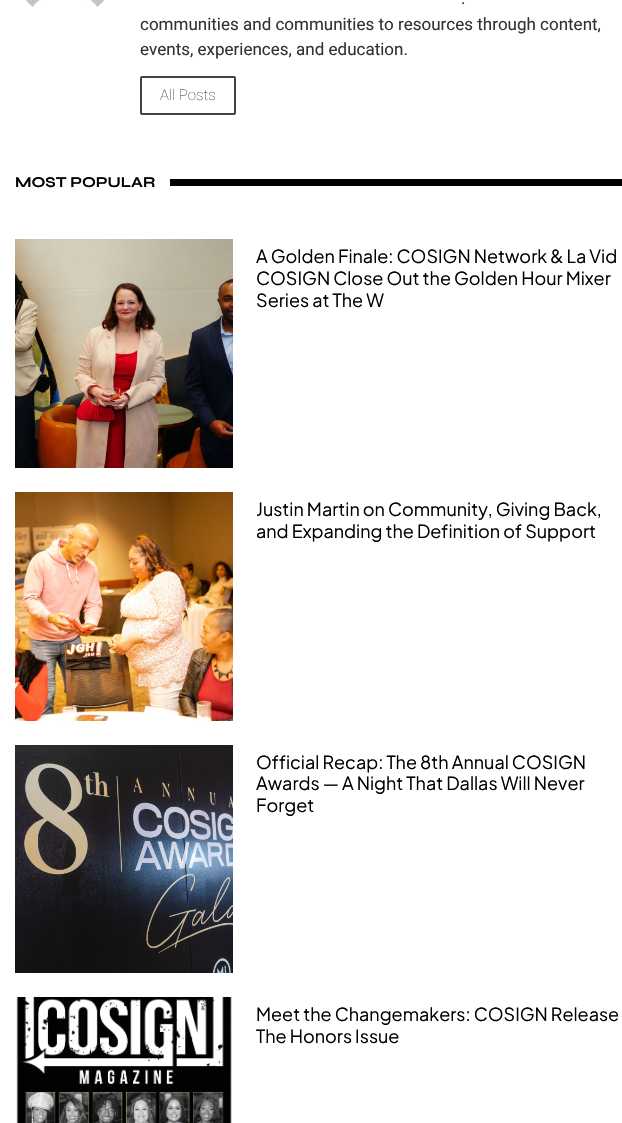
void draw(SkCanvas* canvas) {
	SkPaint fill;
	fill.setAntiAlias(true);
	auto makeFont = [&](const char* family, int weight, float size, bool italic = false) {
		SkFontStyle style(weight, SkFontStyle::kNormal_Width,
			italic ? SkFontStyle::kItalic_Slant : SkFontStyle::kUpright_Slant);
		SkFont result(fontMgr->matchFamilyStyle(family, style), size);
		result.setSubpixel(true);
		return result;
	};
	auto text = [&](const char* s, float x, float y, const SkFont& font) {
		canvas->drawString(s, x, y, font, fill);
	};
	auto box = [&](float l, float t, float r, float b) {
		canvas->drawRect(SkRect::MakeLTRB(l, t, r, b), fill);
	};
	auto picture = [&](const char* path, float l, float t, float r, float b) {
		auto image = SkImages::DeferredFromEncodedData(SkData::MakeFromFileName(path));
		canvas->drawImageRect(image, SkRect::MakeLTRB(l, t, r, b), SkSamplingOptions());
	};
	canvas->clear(0xFFFFFFFF);
	picture("image0.png", 26, 0, 104, 7);
	fill.setStyle(SkPaint::kStroke_Style);
	fill.setStrokeWidth(2);
	fill.setColor(0xFF3F444B);
	canvas->drawRoundRect(SkRect::MakeLTRB(141, 77, 235, 114), 1, 1, fill);
	fill.setStyle(SkPaint::kFill_Style);
	fill.setColor(0xFF000000);
	box(170, 179, 622, 186);
	picture("image1.png", 15, 239, 233, 468);
	picture("image2.png", 15, 492, 233, 721);
	picture("image3.png", 15, 745, 233, 973);
	picture("image4.png", 16, 997, 232, 1123);
	auto font1 = makeFont("Roboto", 400, 17);
	fill.setColor(0xFF333333);
	text(".", 461, 4, font1);
	text("communities and communities to resources through content,", 140, 30, font1);
	text("events, experiences, and education.", 140, 55, font1);
	auto font2 = makeFont("Roboto", 100, 15);
	fill.setColor(0xFF3F444B);
	text("All Posts", 160, 100, font2);
	auto font3 = makeFont("Syne", 700, 15);
	fill.setColor(0xFF000000);
	text("MOST POPULAR", 15, 187, font3);
	auto font4 = makeFont("Plus Jakarta Sans", 400, 18);
	text("A Golden Finale: COSIGN Network & La Vid", 256, 263, font4);
	text("COSIGN Close Out the Golden Hour Mixer", 256, 285, font4);
	text("Series at The W", 256, 307, font4);
	text("Justin Martin on Community, Giving Back,", 256, 516, font4);
	text("and Expanding the Definition of Support", 256, 538, font4);
	text("Official Recap: The 8th Annual COSIGN", 256, 769, font4);
	text("Awards — A Night That Dallas Will Never", 256, 790, font4);
	text("Forget", 256, 812, font4);
	text("Meet the Changemakers: COSIGN Release", 256, 1021, font4);
	text("The Honors Issue", 256, 1043, font4);
}
